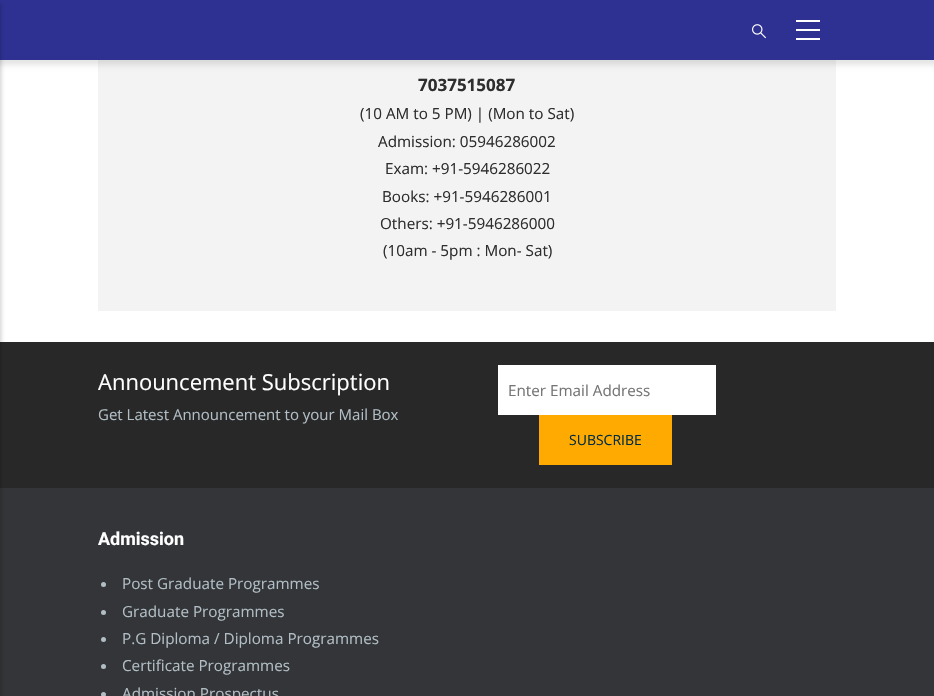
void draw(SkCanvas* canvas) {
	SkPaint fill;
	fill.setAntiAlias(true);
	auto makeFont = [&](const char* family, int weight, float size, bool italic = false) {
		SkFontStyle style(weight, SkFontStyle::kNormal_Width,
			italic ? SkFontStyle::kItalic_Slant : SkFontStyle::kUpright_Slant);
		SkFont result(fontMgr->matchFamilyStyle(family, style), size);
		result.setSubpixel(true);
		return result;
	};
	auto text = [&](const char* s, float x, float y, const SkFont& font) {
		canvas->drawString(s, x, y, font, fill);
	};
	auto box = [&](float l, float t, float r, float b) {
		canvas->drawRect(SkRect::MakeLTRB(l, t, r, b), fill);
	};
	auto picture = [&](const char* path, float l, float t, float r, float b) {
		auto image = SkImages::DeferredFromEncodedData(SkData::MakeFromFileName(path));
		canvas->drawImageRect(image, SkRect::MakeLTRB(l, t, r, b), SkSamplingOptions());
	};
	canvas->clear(0xFFFFFFFF);
	fill.setColor(0xFFF3F3F3);
	box(98, 60, 836, 311);
	fill.setColor(0x1A000000);
	fill.setMaskFilter(SkMaskFilter::MakeBlur(kNormal_SkBlurStyle, 2.5f));
	canvas->drawRect(SkRect::MakeLTRB(-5, -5, 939, 65), fill);
	fill.setMaskFilter(nullptr);
	fill.setColor(0xFF2E3192);
	box(0, 0, 934, 60);
	fill.setColor(0xFF333538);
	box(0, 488, 934, 696);
	fill.setColor(0xFF282828);
	box(0, 342, 934, 488);
	fill.setColor(0x33000000);
	fill.setMaskFilter(SkMaskFilter::MakeBlur(kNormal_SkBlurStyle, 2));
	canvas->drawRect(SkRect::MakeLTRB(-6, 3, 1, 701), fill);
	fill.setMaskFilter(nullptr);
	picture("image0.png", 752, 24, 766, 39);
	fill.setColor(0xFFFFFFFF);
	box(796, 20, 820, 22);
	box(796, 29, 820, 31);
	box(796, 38, 820, 40);
	box(498, 365, 716, 415);
	fill.setColor(0xFFFFAA01);
	box(539, 415, 672, 465);
	fill.setColor(0xFFB1BEC5);
	canvas->drawCircle(103.5f, 584.5f, 2.5f, fill);
	canvas->drawCircle(103.5f, 612.5f, 2.5f, fill);
	canvas->drawCircle(103.5f, 639.5f, 2.5f, fill);
	canvas->drawCircle(103.5f, 666.5f, 2.5f, fill);
	canvas->drawCircle(103.5f, 694.5f, 2.5f, fill);
	auto font1 = makeFont("Open Sans", 700, 17);
	fill.setColor(0xFF2E2E2E);
	text("7037515087", 418, 91, font1);
	auto font2 = makeFont("Open Sans", 400, 15.25f);
	text("(10 AM to 5 PM) | (Mon to Sat)", 360, 119, font2);
	text("Admission: 05946286002", 378, 147, font2);
	text("Exam: +91-5946286022", 385, 174, font2);
	text("Books: +91-5946286001", 382, 202, font2);
	text("Others: +91-5946286000", 380, 229, font2);
	text("(10am - 5pm : Mon- Sat)", 383, 256, font2);
	auto font3 = makeFont("Open Sans", 400, 22);
	fill.setColor(0xFFFFFFFF);
	text("Announcement Subscription", 98, 390, font3);
	auto font4 = makeFont("Open Sans", 400, 15);
	fill.setColor(0xFFB1BEC5);
	text("Get Latest Announcement to your Mail Box", 98, 420, font4);
	fill.setColor(0xFF757575);
	text("Enter Email Address", 508, 396, font2);
	auto font5 = makeFont("Open Sans", 400, 14);
	fill.setColor(0xFF002C42);
	text("SUBSCRIBE", 569, 445, font5);
	auto font6 = makeFont("Roboto", 700, 18);
	fill.setColor(0xFFFFFFFF);
	text("Admission", 98, 545, font6);
	fill.setColor(0xFFB1BEC5);
	text("Post Graduate Programmes", 122, 589, font2);
	text("Graduate Programmes", 122, 617, font2);
	text("P.G Diploma / Diploma Programmes", 122, 644, font2);
	text("Certificate Programmes", 122, 671, font2);
	text("Admission Prospectus", 122, 699, font2);
}
